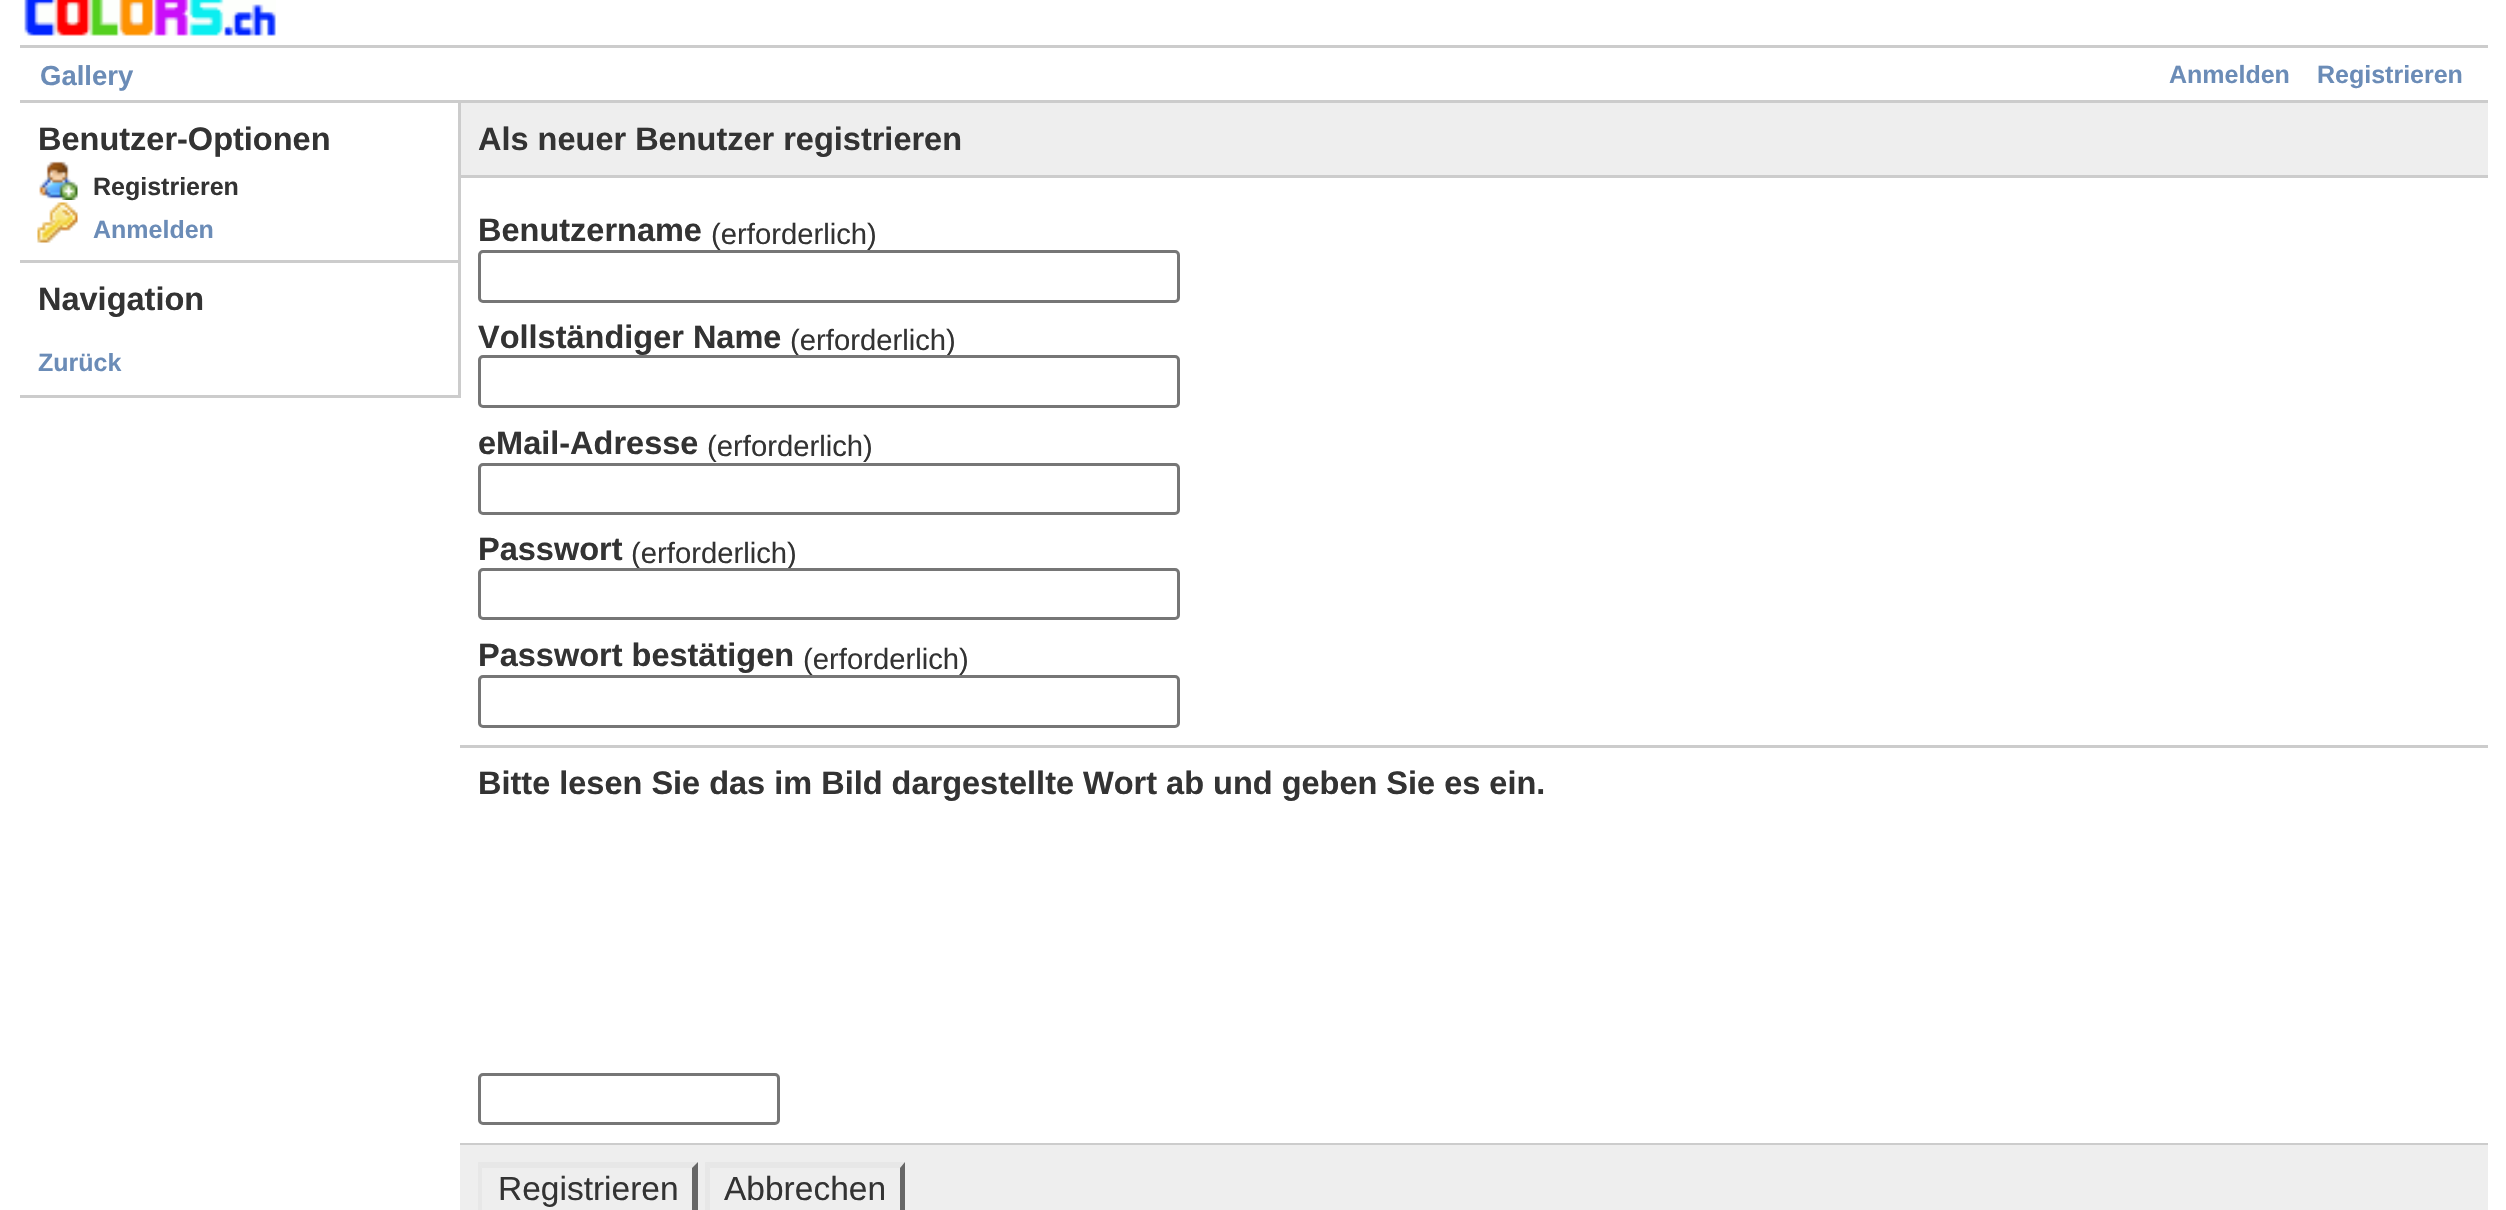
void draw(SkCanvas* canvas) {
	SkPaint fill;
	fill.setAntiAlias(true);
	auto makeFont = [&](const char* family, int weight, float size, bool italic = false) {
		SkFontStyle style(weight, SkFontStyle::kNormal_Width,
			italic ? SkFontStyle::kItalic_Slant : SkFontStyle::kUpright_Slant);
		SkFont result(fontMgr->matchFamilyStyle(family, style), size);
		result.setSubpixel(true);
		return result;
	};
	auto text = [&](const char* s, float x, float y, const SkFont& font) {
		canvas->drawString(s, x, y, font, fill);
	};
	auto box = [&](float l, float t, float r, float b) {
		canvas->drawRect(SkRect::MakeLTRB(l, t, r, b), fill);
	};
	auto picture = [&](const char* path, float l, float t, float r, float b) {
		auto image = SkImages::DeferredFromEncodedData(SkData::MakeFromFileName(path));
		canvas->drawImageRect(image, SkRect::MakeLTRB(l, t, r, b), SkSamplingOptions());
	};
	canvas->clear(0xFFFFFFFF);
	picture("image0.png", 24, 0, 276, 36);
	fill.setColor(0xFFCCCCCC);
	box(20, 45, 2488, 48);
	box(20, 100, 2488, 103);
	box(460, 175, 2488, 178);
	box(458, 103, 461, 398);
	box(20, 260, 458, 263);
	picture("image1.png", 39, 161, 78, 200);
	picture("image2.png", 37, 202, 78, 243);
	box(20, 395, 458, 398);
	fill.setColor(0xFFEEEEEE);
	box(461, 103, 2488, 175);
	fill.setColor(0xFFCCCCCC);
	box(460, 745, 2488, 748);
	fill.setStyle(SkPaint::kStroke_Style);
	fill.setStrokeWidth(3);
	fill.setColor(0xFF767676);
	canvas->drawRoundRect(SkRect::MakeLTRB(479.5f, 464.5f, 1178.5f, 513.5f), 3.5f, 3.5f, fill);
	fill.setStyle(SkPaint::kFill_Style);
	fill.setColor(0xFFCCCCCC);
	box(460, 1143, 2488, 1145);
	fill.setStyle(SkPaint::kStroke_Style);
	fill.setColor(0xFF767676);
	canvas->drawRoundRect(SkRect::MakeLTRB(479.5f, 1074.5f, 778.5f, 1123.5f), 3.5f, 3.5f, fill);
	fill.setStyle(SkPaint::kFill_Style);
	fill.setColor(0xFFEEEEEE);
	box(460, 1145, 2488, 1210);
	fill.setColor(0xFFE7E7E7);
	canvas->drawPath(SkPathBuilder().moveTo(478, 1162).lineTo(698, 1162).lineTo(692, 1168).lineTo(482, 1168).close().detach(), fill);
	fill.setColor(0xFF666666);
	canvas->drawPath(SkPathBuilder().moveTo(698, 1162).lineTo(698, 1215).lineTo(692, 1210).lineTo(692, 1168).close().detach(), fill);
	fill.setColor(0xFFE7E7E7);
	canvas->drawPath(SkPathBuilder().moveTo(478, 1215).lineTo(478, 1162).lineTo(482, 1168).lineTo(482, 1210).close().detach(), fill);
	canvas->drawPath(SkPathBuilder().moveTo(705, 1162).lineTo(905, 1162).lineTo(900, 1168).lineTo(710, 1168).close().detach(), fill);
	fill.setColor(0xFF666666);
	canvas->drawPath(SkPathBuilder().moveTo(905, 1162).lineTo(905, 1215).lineTo(900, 1210).lineTo(900, 1168).close().detach(), fill);
	fill.setColor(0xFFE7E7E7);
	canvas->drawPath(SkPathBuilder().moveTo(705, 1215).lineTo(705, 1162).lineTo(710, 1168).lineTo(710, 1210).close().detach(), fill);
	auto font1 = makeFont("Liberation Sans", 700, 27.5f);
	fill.setColor(0xFF6B8CB7);
	text("Gallery", 40, 85, font1);
	auto font2 = makeFont("Liberation Sans", 700, 25);
	text("Anmelden", 2169, 83, font2);
	text("Registrieren", 2317, 83, font2);
	auto font3 = makeFont("Liberation Sans", 700, 32.5f);
	fill.setColor(0xFF333333);
	text("Benutzer-Optionen", 38, 150, font3);
	text("Registrieren", 93, 195, font2);
	fill.setColor(0xFF6B8CB7);
	text("Anmelden", 93, 238, font2);
	fill.setColor(0xFF333333);
	text("Navigation", 38, 310, font3);
	fill.setColor(0xFF6B8CB7);
	text("Zurück", 38, 371, font2);
	fill.setColor(0xFF333333);
	text("Als neuer Benutzer registrieren", 478, 150, font3);
	text("Benutzername", 478, 241, font3);
	auto font4 = makeFont("Liberation Sans", 400, 29.25f);
	text("(erforderlich)", 711, 244, font4);
	fill.setColor(0xFFFFFFFF);
	canvas->drawRoundRect(SkRect::MakeLTRB(479.5f, 251.5f, 1178.5f, 301.5f), 3.5f, 3.5f, fill);
	fill.setStyle(SkPaint::kStroke_Style);
	fill.setColor(0xFF767676);
	canvas->drawRoundRect(SkRect::MakeLTRB(479.5f, 251.5f, 1178.5f, 301.5f), 3.5f, 3.5f, fill);
	fill.setStyle(SkPaint::kFill_Style);
	fill.setColor(0xFF333333);
	text("Vollständiger Name", 478, 348, font3);
	text("(erforderlich)", 790, 350, font4);
	fill.setColor(0xFFFFFFFF);
	canvas->drawRoundRect(SkRect::MakeLTRB(479.5f, 356.5f, 1178.5f, 406.5f), 3.5f, 3.5f, fill);
	fill.setStyle(SkPaint::kStroke_Style);
	fill.setColor(0xFF767676);
	canvas->drawRoundRect(SkRect::MakeLTRB(479.5f, 356.5f, 1178.5f, 406.5f), 3.5f, 3.5f, fill);
	fill.setStyle(SkPaint::kFill_Style);
	fill.setColor(0xFF333333);
	text("eMail-Adresse", 478, 454, font3);
	text("(erforderlich)", 707, 456, font4);
	text("Passwort", 478, 560, font3);
	text("(erforderlich)", 631, 563, font4);
	fill.setColor(0xFFFFFFFF);
	canvas->drawRoundRect(SkRect::MakeLTRB(479.5f, 569.5f, 1178.5f, 618.5f), 3.5f, 3.5f, fill);
	fill.setStyle(SkPaint::kStroke_Style);
	fill.setColor(0xFF767676);
	canvas->drawRoundRect(SkRect::MakeLTRB(479.5f, 569.5f, 1178.5f, 618.5f), 3.5f, 3.5f, fill);
	fill.setStyle(SkPaint::kFill_Style);
	fill.setColor(0xFF333333);
	text("Passwort bestätigen", 478, 666, font3);
	text("(erforderlich)", 803, 669, font4);
	fill.setColor(0xFFFFFFFF);
	canvas->drawRoundRect(SkRect::MakeLTRB(479.5f, 676.5f, 1178.5f, 726.5f), 3.5f, 3.5f, fill);
	fill.setStyle(SkPaint::kStroke_Style);
	fill.setColor(0xFF767676);
	canvas->drawRoundRect(SkRect::MakeLTRB(479.5f, 676.5f, 1178.5f, 726.5f), 3.5f, 3.5f, fill);
	fill.setStyle(SkPaint::kFill_Style);
	fill.setColor(0xFF333333);
	text("Bitte lesen Sie das im Bild dargestellte Wort ab und geben Sie es ein.", 478, 794, font3);
	auto font5 = makeFont("Liberation Sans", 400, 33.5f);
	text("Registrieren", 498, 1200, font5);
	text("Abbrechen", 724, 1200, font5);
}
